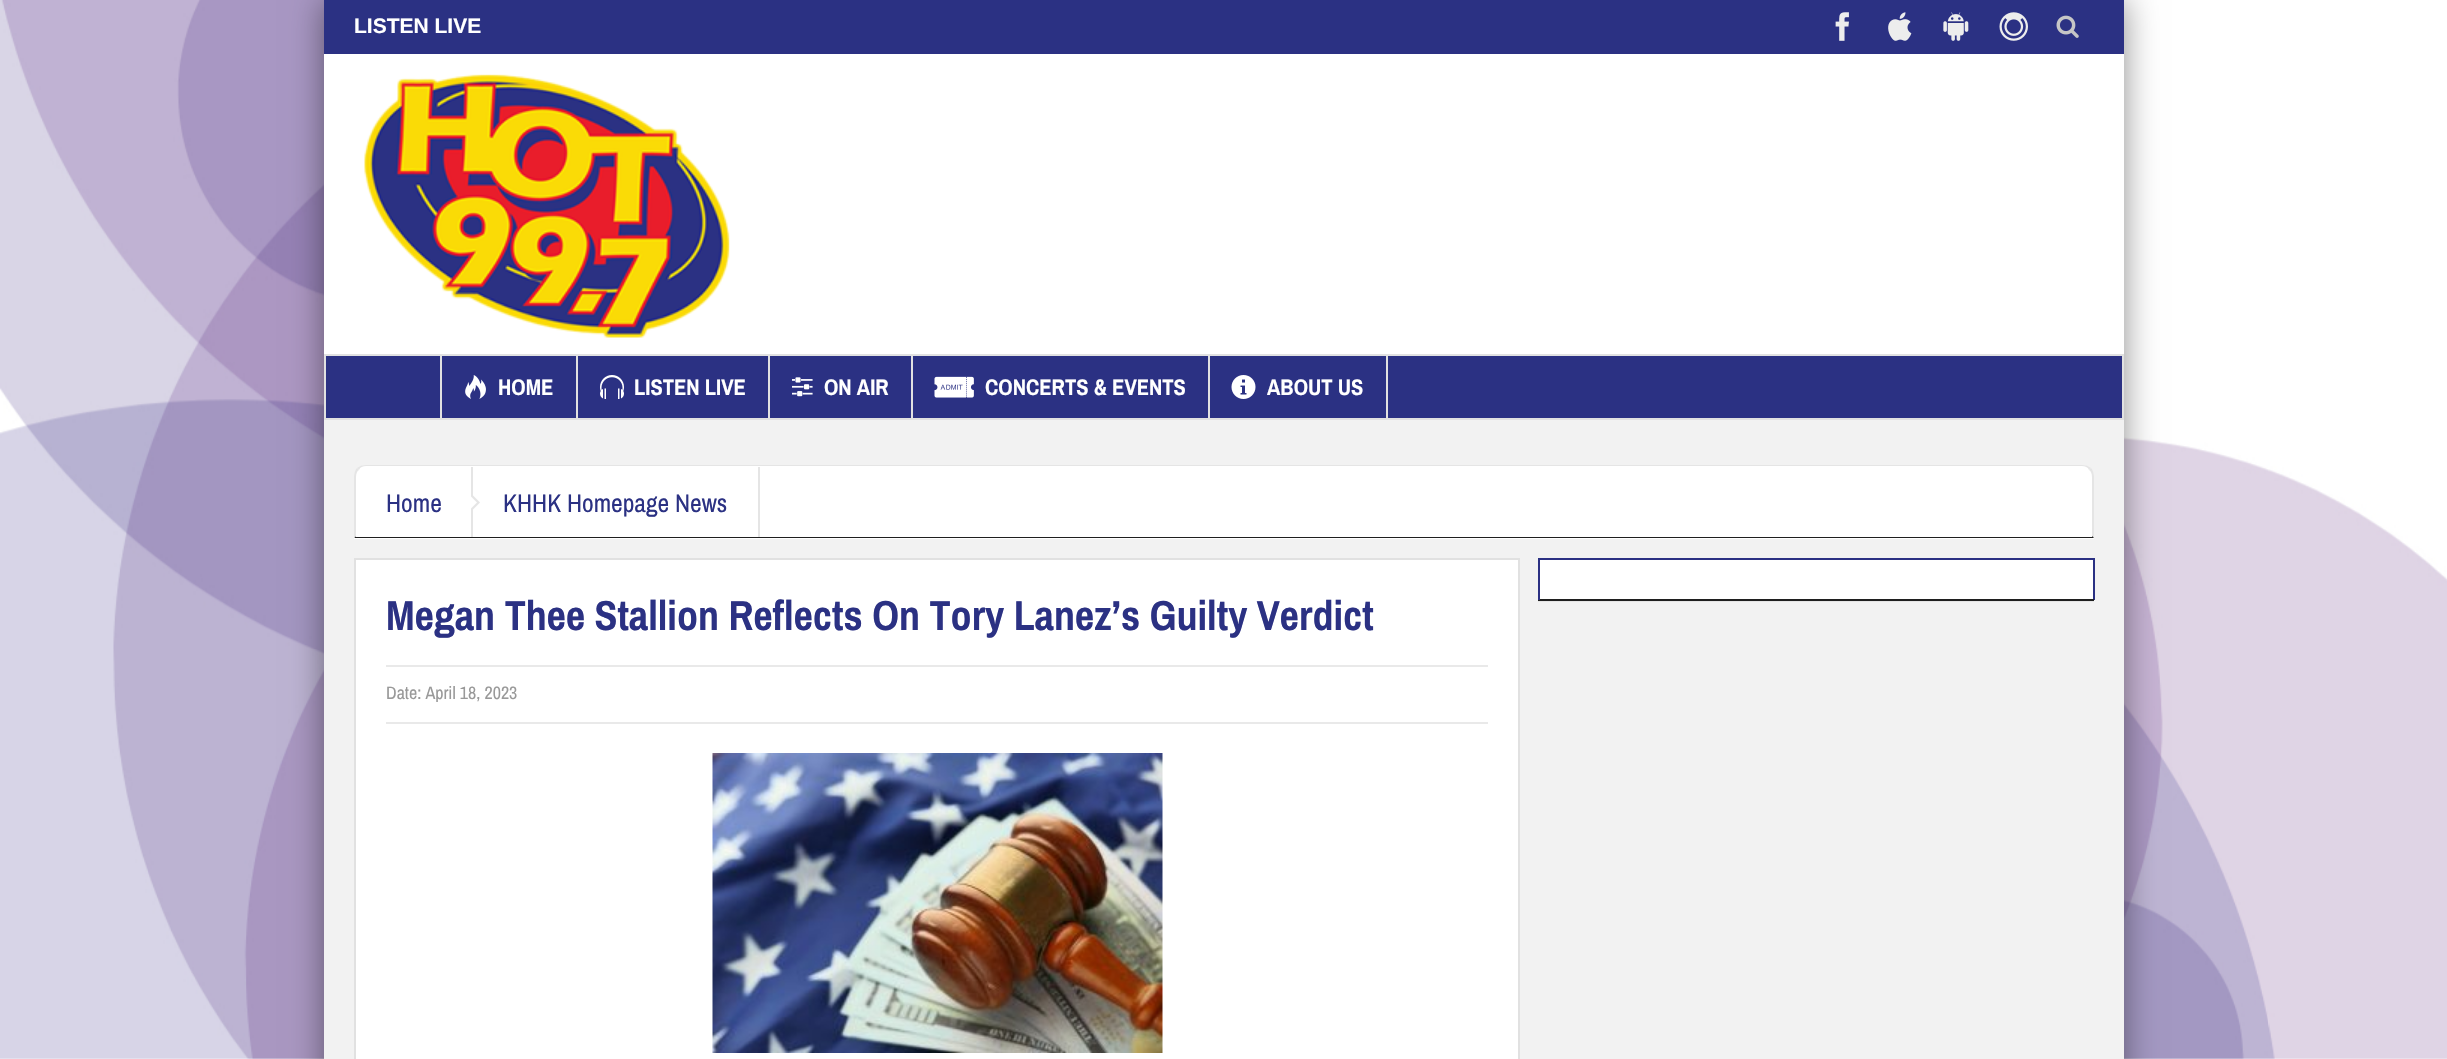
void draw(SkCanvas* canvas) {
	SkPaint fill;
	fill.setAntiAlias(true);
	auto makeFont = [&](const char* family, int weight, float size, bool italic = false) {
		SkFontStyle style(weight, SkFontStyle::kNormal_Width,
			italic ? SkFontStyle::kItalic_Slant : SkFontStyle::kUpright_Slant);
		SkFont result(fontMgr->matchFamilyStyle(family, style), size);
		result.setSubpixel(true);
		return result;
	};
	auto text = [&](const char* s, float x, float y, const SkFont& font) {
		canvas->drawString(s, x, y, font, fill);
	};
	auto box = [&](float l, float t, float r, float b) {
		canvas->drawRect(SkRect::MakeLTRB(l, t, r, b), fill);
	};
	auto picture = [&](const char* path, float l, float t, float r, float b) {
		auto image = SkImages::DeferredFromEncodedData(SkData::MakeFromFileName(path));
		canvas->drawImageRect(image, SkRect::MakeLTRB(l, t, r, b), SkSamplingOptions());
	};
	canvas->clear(0xFFFFFFFF);
	picture("image0.png", 0, 0, 2447, 1059);
	fill.setColor(0x70000000);
	fill.setMaskFilter(SkMaskFilter::MakeBlur(kNormal_SkBlurStyle, 16));
	canvas->drawRect(SkRect::MakeLTRB(324, 0, 2124, 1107), fill);
	fill.setMaskFilter(nullptr);
	fill.setColor(0xFFF2F2F2);
	box(324, 420, 2124, 1059);
	fill.setColor(0xFF2B3183);
	box(324, 0, 2124, 54);
	picture("image1.png", 1835, 12, 1849, 41);
	picture("image2.png", 1888, 12, 1912, 41);
	picture("image3.png", 1943, 12, 1969, 41);
	picture("image4.png", 1999, 12, 2028, 41);
	picture("image5.png", 2056, 15, 2079, 38);
	fill.setColor(0xFFFFFFFF);
	box(324, 54, 2124, 354);
	picture("image6.png", 364, 74, 730, 338);
	fill.setColor(0xFF2B3183);
	canvas->drawRect(SkRect::MakeLTRB(325, 355, 2123, 419), fill);
	fill.setStyle(SkPaint::kStroke_Style);
	fill.setStrokeWidth(2);
	fill.setColor(0xFFE1E1E1);
	canvas->drawRect(SkRect::MakeLTRB(325, 355, 2123, 419), fill);
	fill.setStyle(SkPaint::kFill_Style);
	box(576, 356, 578, 419);
	box(440, 356, 442, 419);
	picture("image7.png", 465, 375, 486, 399);
	box(768, 356, 770, 419);
	picture("image8.png", 600, 375, 624, 399);
	box(911, 356, 913, 419);
	picture("image9.png", 792, 377, 813, 397);
	box(1208, 356, 1210, 419);
	picture("image10.png", 934, 376, 974, 398);
	box(1386, 356, 1388, 419);
	picture("image11.png", 1231, 375, 1256, 399);
	fill.setColor(0xFFFFFFFF);
	canvas->drawPath(SkPathBuilder().moveTo(366, 465).lineTo(2082, 465).cubicTo(2088.5f, 465, 2094, 470.5f, 2094, 477).lineTo(2094, 539).lineTo(354, 539).lineTo(354, 477).cubicTo(354, 470.5f, 359.5f, 465, 366, 465).close().detach(), fill);
	fill.setColor(0xFFE5E5E5);
	canvas->drawPath(SkPathBuilder().moveTo(366, 465).cubicTo(362, 465, 360, 466, 357, 468).lineTo(359, 470).cubicTo(360, 467, 363, 466, 366, 466).lineTo(2082, 466).cubicTo(2085, 466, 2088, 467, 2089, 470).lineTo(2091, 468).cubicTo(2088, 466, 2086, 465, 2082, 465).close().detach(), fill);
	canvas->drawPath(SkPathBuilder().moveTo(2094, 538).lineTo(2094, 477).cubicTo(2094, 474, 2093, 470, 2091, 468).lineTo(2089, 470).cubicTo(2091, 471, 2092, 474, 2092, 477).lineTo(2092, 536).close().detach(), fill);
	fill.setColor(0xFF1F1F1F);
	canvas->drawPath(SkPathBuilder().moveTo(2094, 538).lineTo(354, 538).lineTo(356, 536).lineTo(356, 537).lineTo(2092, 537).lineTo(2092, 536).close().detach(), fill);
	fill.setColor(0xFFE5E5E5);
	canvas->drawPath(SkPathBuilder().moveTo(354, 477).lineTo(354, 538).lineTo(356, 536).lineTo(356, 477).cubicTo(356, 474, 357, 471, 359, 470).lineTo(357, 468).cubicTo(355, 470, 354, 474, 354, 477).close().detach(), fill);
	box(471, 467, 473, 537);
	canvas->drawPath(SkPathBuilder().moveTo(471, 511.5f).lineTo(471, 493.5f).lineTo(480, 502.5f).close().detach(), fill);
	fill.setColor(0xFFFFFFFF);
	canvas->drawPath(SkPathBuilder().moveTo(471, 508.5f).lineTo(471, 496.5f).lineTo(477, 502.5f).close().detach(), fill);
	fill.setColor(0xFFE5E5E5);
	box(758, 467, 760, 537);
	box(1538, 601, 2094, 602);
	fill.setColor(0xFFFFFFFF);
	box(1540, 560, 2093, 599);
	fill.setColor(0xFF2B3183);
	box(1538, 558, 2094, 560);
	box(2093, 558, 2095, 600);
	fill.setColor(0xFF1F1F1F);
	box(1538, 599, 2094, 601);
	fill.setColor(0xFF2B3183);
	box(1538, 558, 1540, 600);
	fill.setColor(0xFFFFFFFF);
	box(356, 560, 1518, 1059);
	fill.setColor(0xFFE1E1E1);
	box(354, 558, 1520, 560);
	box(1518, 558, 1520, 1059);
	box(354, 558, 356, 1059);
	fill.setColor(0xFFE9E9E9);
	box(386, 665, 1488, 667);
	box(386, 722, 1488, 724);
	picture("image12.png", 712, 753, 1163, 1053);
	auto font1 = makeFont("Liberation Sans", 700, 21);
	fill.setColor(0xFFFFFFFF);
	text("LISTEN LIVE", 354, 33, font1);
	auto font2 = makeFont("Archivo Narrow", 700, 22.5f);
	text("HOME", 498, 395, font2);
	text("LISTEN LIVE", 634, 395, font2);
	text("ON AIR", 824, 395, font2);
	text("CONCERTS & EVENTS", 985, 395, font2);
	text("ABOUT US", 1267, 395, font2);
	auto font3 = makeFont("Archivo Narrow", 400, 25.5f);
	fill.setColor(0xFF2B3183);
	text("Home", 386, 512, font3);
	text("KHHK Homepage News", 503, 512, font3);
	auto font4 = makeFont("Archivo Narrow", 700, 42);
	text("Megan Thee Stallion Reflects On Tory Lanez’s Guilty Verdict", 386, 630, font4);
	auto font5 = makeFont("Archivo Narrow", 400, 18);
	fill.setColor(0xFF999999);
	text("Date: April 18, 2023", 386, 699, font5);
}
